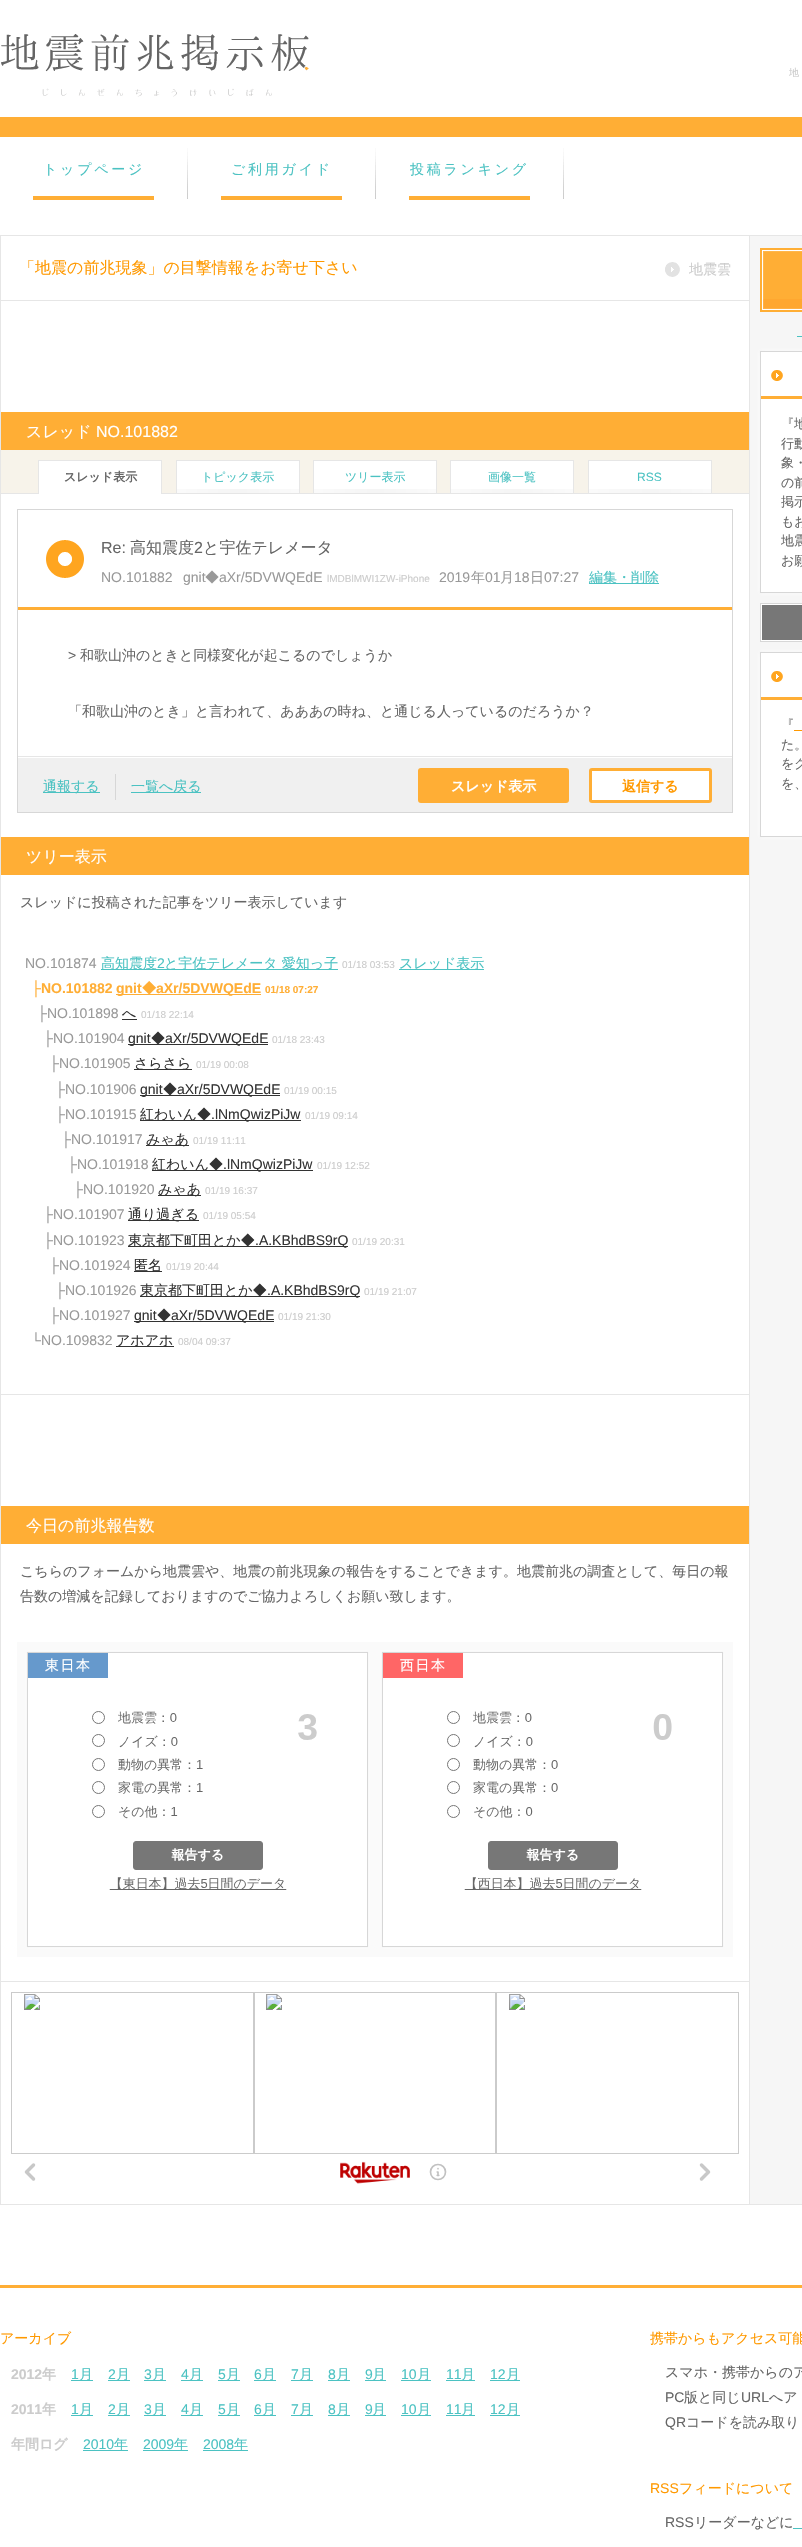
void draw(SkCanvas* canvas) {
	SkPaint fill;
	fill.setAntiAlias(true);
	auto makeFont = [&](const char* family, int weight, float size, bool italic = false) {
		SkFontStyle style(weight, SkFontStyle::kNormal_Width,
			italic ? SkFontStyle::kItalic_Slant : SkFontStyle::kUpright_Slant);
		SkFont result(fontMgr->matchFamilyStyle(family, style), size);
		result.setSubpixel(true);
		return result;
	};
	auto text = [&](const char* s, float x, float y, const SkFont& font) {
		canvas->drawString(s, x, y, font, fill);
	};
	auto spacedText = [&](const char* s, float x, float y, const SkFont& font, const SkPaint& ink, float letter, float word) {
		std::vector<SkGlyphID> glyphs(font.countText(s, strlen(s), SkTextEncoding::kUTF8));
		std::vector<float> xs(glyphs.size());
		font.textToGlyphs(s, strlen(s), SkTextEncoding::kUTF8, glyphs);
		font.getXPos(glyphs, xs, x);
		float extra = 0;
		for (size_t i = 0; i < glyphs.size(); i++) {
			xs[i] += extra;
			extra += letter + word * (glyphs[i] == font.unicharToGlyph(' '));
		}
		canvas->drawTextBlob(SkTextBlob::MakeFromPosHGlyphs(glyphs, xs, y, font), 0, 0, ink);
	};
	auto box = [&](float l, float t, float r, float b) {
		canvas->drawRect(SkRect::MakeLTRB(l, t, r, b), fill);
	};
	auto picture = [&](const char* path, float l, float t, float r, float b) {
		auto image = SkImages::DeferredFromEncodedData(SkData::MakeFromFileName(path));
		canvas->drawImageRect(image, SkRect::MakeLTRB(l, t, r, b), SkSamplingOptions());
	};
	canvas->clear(0xFFFFFFFF);
	picture("image0.png", 1, 34, 309, 97);
	fill.setColor(0xFFFFAE35);
	box(0, 117, 802, 137);
	picture("image1.png", 33, 148, 188, 200);
	picture("image1.png", 221, 148, 376, 200);
	picture("image1.png", 409, 148, 564, 200);
	picture("image2.png", 0, 236, 802, 2204);
	fill.setColor(0xFFE6E6E6);
	box(0, 235, 802, 236);
	box(0, 2204, 802, 2205);
	picture("image3.png", 665, 262, 680, 277);
	box(0, 300, 750, 301);
	fill.setColor(0xFFFFAE35);
	box(1, 412, 749, 450);
	fill.setColor(0xFFF7F3EA);
	box(1, 450, 749, 493);
	fill.setColor(0xFFE6E6E6);
	box(1, 493, 749, 494);
	fill.setColor(0xFFFFFFFF);
	box(39, 461, 161, 494);
	fill.setColor(0xFFE6E6E6);
	box(38, 460, 162, 461);
	box(161, 460, 162, 494);
	box(38, 460, 39, 494);
	fill.setColor(0xFFFFFFFF);
	box(177, 461, 299, 489);
	fill.setColor(0xFFE6E6E6);
	box(176, 460, 300, 461);
	box(299, 460, 300, 494);
	box(176, 460, 177, 494);
	picture("image4.png", 177, 489, 299, 493);
	fill.setColor(0xFFFFFFFF);
	box(314, 461, 436, 489);
	fill.setColor(0xFFE6E6E6);
	box(313, 460, 437, 461);
	box(436, 460, 437, 494);
	box(313, 460, 314, 494);
	picture("image4.png", 314, 489, 436, 493);
	fill.setColor(0xFFFFFFFF);
	box(451, 461, 573, 489);
	fill.setColor(0xFFE6E6E6);
	box(450, 460, 574, 461);
	box(573, 460, 574, 494);
	box(450, 460, 451, 494);
	picture("image4.png", 451, 489, 573, 493);
	fill.setColor(0xFFFFFFFF);
	box(589, 461, 711, 489);
	fill.setColor(0xFFE6E6E6);
	box(588, 460, 712, 461);
	box(711, 460, 712, 494);
	box(588, 460, 589, 494);
	picture("image4.png", 589, 489, 711, 493);
	fill.setStyle(SkPaint::kStroke_Style);
	fill.setStrokeWidth(1);
	fill.setColor(0xFFD7D7D7);
	canvas->drawRect(SkRect::MakeLTRB(17.5f, 509.5f, 732.5f, 812.5f), fill);
	picture("image5.png", 46, 540, 84, 578);
	fill.setStyle(SkPaint::kFill_Style);
	fill.setColor(0xFF4BC2C2);
	box(589, 583, 659, 584);
	fill.setColor(0xFFFFAE35);
	box(18, 607, 732, 610);
	fill.setColor(0xFFF0F0F0);
	box(18, 758, 732, 812);
	fill.setColor(0xFFE6E6E6);
	box(18, 756, 732, 757);
	fill.setColor(0xFF4BC2C2);
	box(43, 792, 100, 793);
	fill.setColor(0xFFD7D7D7);
	box(115, 774, 116, 800);
	fill.setColor(0xFF4BC2C2);
	box(131, 792, 201, 793);
	fill.setColor(0xFFFFAE35);
	canvas->drawRoundRect(SkRect::MakeLTRB(419.5f, 769.5f, 567.5f, 801.5f), 1.5f, 1.5f, fill);
	fill.setStyle(SkPaint::kStroke_Style);
	fill.setStrokeWidth(3);
	canvas->drawRoundRect(SkRect::MakeLTRB(419.5f, 769.5f, 567.5f, 801.5f), 1.5f, 1.5f, fill);
	fill.setStyle(SkPaint::kFill_Style);
	fill.setColor(0xFFFFFFFF);
	canvas->drawRoundRect(SkRect::MakeLTRB(590.5f, 769.5f, 710.5f, 801.5f), 1.5f, 1.5f, fill);
	fill.setStyle(SkPaint::kStroke_Style);
	fill.setColor(0xFFFFAE35);
	canvas->drawRoundRect(SkRect::MakeLTRB(590.5f, 769.5f, 710.5f, 801.5f), 1.5f, 1.5f, fill);
	fill.setStyle(SkPaint::kFill_Style);
	box(1, 837, 749, 875);
	fill.setColor(0xFF4BC2C2);
	box(101, 969, 338, 970);
	box(399, 969, 484, 970);
	fill.setColor(0xFFFFAE35);
	box(116, 994, 261, 995);
	fill.setColor(0xFF333333);
	box(122, 1019, 137, 1020);
	box(128, 1044, 268, 1045);
	box(134, 1069, 192, 1070);
	box(140, 1095, 280, 1096);
	box(140, 1120, 301, 1121);
	box(146, 1145, 189, 1146);
	box(152, 1170, 313, 1171);
	box(158, 1195, 201, 1196);
	box(128, 1220, 199, 1221);
	box(128, 1246, 348, 1247);
	box(134, 1271, 162, 1272);
	box(140, 1296, 360, 1297);
	box(134, 1321, 274, 1322);
	box(116, 1346, 174, 1347);
	fill.setColor(0xFFE6E6E6);
	box(0, 1394, 750, 1395);
	fill.setColor(0xFFFFAE35);
	box(1, 1506, 749, 1544);
	fill.setColor(0xFFFAFAFA);
	box(17, 1642, 733, 1957);
	fill.setColor(0xFFE6E6E6);
	fill.setMaskFilter(SkMaskFilter::MakeBlur(kNormal_SkBlurStyle, 0.5f));
	canvas->drawRect(SkRect::MakeLTRB(27, 1652, 368, 1947), fill);
	fill.setMaskFilter(nullptr);
	fill.setColor(0xFFFFFFFF);
	fill.setMaskFilter(SkMaskFilter::MakeBlur(kNormal_SkBlurStyle, 2.5f));
	canvas->drawRect(SkRect::MakeLTRB(27, 1652, 368, 1947), fill);
	fill.setMaskFilter(nullptr);
	canvas->drawRect(SkRect::MakeLTRB(27.5f, 1652.5f, 367.5f, 1946.5f), fill);
	fill.setStyle(SkPaint::kStroke_Style);
	fill.setStrokeWidth(1);
	fill.setColor(0xFFD7D7D7);
	canvas->drawRect(SkRect::MakeLTRB(27.5f, 1652.5f, 367.5f, 1946.5f), fill);
	fill.setStyle(SkPaint::kFill_Style);
	fill.setColor(0xFF6699CC);
	box(28, 1653, 108, 1678);
	picture("image6.png", 92, 1711, 317, 1890);
	fill.setColor(0xFFE6E6E6);
	fill.setMaskFilter(SkMaskFilter::MakeBlur(kNormal_SkBlurStyle, 0.5f));
	canvas->drawRect(SkRect::MakeLTRB(382, 1652, 723, 1947), fill);
	fill.setMaskFilter(nullptr);
	fill.setColor(0xFFFFFFFF);
	fill.setMaskFilter(SkMaskFilter::MakeBlur(kNormal_SkBlurStyle, 2.5f));
	canvas->drawRect(SkRect::MakeLTRB(382, 1652, 723, 1947), fill);
	fill.setMaskFilter(nullptr);
	canvas->drawRect(SkRect::MakeLTRB(382.5f, 1652.5f, 722.5f, 1946.5f), fill);
	fill.setStyle(SkPaint::kStroke_Style);
	fill.setColor(0xFFD7D7D7);
	canvas->drawRect(SkRect::MakeLTRB(382.5f, 1652.5f, 722.5f, 1946.5f), fill);
	fill.setStyle(SkPaint::kFill_Style);
	fill.setColor(0xFFFF6666);
	box(383, 1653, 463, 1678);
	picture("image7.png", 447, 1711, 672, 1890);
	fill.setColor(0xFFE6E6E6);
	box(0, 1981, 750, 1982);
	picture("image8.png", 11, 1992, 739, 2184);
	picture("image9.png", 760, 248, 802, 312);
	fill.setColor(0xFF4BC2C2);
	box(797, 336, 802, 337);
	fill.setColor(0xFFE6E6E6);
	fill.setMaskFilter(SkMaskFilter::MakeBlur(kNormal_SkBlurStyle, 0.5f));
	canvas->drawRect(SkRect::MakeLTRB(760, 351, 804, 593), fill);
	fill.setMaskFilter(nullptr);
	fill.setColor(0xFFFFFFFF);
	fill.setMaskFilter(SkMaskFilter::MakeBlur(kNormal_SkBlurStyle, 2.5f));
	canvas->drawRect(SkRect::MakeLTRB(760, 351, 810, 593), fill);
	fill.setMaskFilter(nullptr);
	canvas->drawRect(SkRect::MakeLTRB(760.5f, 351.5f, 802.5f, 592.5f), fill);
	fill.setStyle(SkPaint::kStroke_Style);
	fill.setColor(0xFFD7D7D7);
	canvas->drawRect(SkRect::MakeLTRB(760.5f, 351.5f, 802.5f, 592.5f), fill);
	picture("image10.png", 771, 370, 783, 381);
	fill.setStyle(SkPaint::kFill_Style);
	fill.setColor(0xFFFFAE35);
	box(761, 396, 802, 399);
	fill.setColor(0xFFFFFFFF);
	canvas->drawRect(SkRect::MakeLTRB(760.5f, 603.5f, 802.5f, 641.5f), fill);
	fill.setStyle(SkPaint::kStroke_Style);
	fill.setColor(0xFFD7D7D7);
	canvas->drawRect(SkRect::MakeLTRB(760.5f, 603.5f, 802.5f, 641.5f), fill);
	fill.setStyle(SkPaint::kFill_Style);
	fill.setColor(0xFF777777);
	box(762, 605, 802, 640);
	fill.setColor(0xFFE6E6E6);
	fill.setMaskFilter(SkMaskFilter::MakeBlur(kNormal_SkBlurStyle, 0.5f));
	canvas->drawRect(SkRect::MakeLTRB(760, 652, 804, 837), fill);
	fill.setMaskFilter(nullptr);
	fill.setColor(0xFFFFFFFF);
	fill.setMaskFilter(SkMaskFilter::MakeBlur(kNormal_SkBlurStyle, 2.5f));
	canvas->drawRect(SkRect::MakeLTRB(760, 652, 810, 837), fill);
	fill.setMaskFilter(nullptr);
	canvas->drawRect(SkRect::MakeLTRB(760.5f, 652.5f, 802.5f, 836.5f), fill);
	fill.setStyle(SkPaint::kStroke_Style);
	fill.setColor(0xFFD7D7D7);
	canvas->drawRect(SkRect::MakeLTRB(760.5f, 652.5f, 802.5f, 836.5f), fill);
	picture("image10.png", 771, 671, 783, 682);
	fill.setStyle(SkPaint::kFill_Style);
	fill.setColor(0xFFFFAE35);
	box(761, 697, 802, 700);
	fill.setColor(0xFFFF9900);
	box(794, 730, 802, 731);
	fill.setColor(0xFFFFAE35);
	box(0, 2285, 802, 2288);
	fill.setColor(0xFF4BC2C2);
	box(71, 2380, 93, 2381);
	box(108, 2380, 130, 2381);
	box(144, 2380, 166, 2381);
	box(181, 2380, 203, 2381);
	box(218, 2380, 240, 2381);
	box(254, 2380, 276, 2381);
	box(291, 2380, 313, 2381);
	box(328, 2380, 350, 2381);
	box(365, 2380, 386, 2381);
	box(401, 2380, 431, 2381);
	box(446, 2380, 475, 2381);
	box(490, 2380, 520, 2381);
	box(71, 2415, 93, 2416);
	box(108, 2415, 130, 2416);
	box(144, 2415, 166, 2416);
	box(181, 2415, 203, 2416);
	box(218, 2415, 240, 2416);
	box(254, 2415, 276, 2416);
	box(291, 2415, 313, 2416);
	box(328, 2415, 350, 2416);
	box(365, 2415, 386, 2416);
	box(401, 2415, 431, 2416);
	box(446, 2415, 475, 2416);
	box(490, 2415, 520, 2416);
	box(83, 2450, 128, 2451);
	box(143, 2450, 188, 2451);
	box(203, 2450, 248, 2451);
	box(793, 2528, 802, 2529);
	auto font1 = makeFont("WenQuanYi Zen Hei", 500, 10);
	fill.setColor(0xFFCCCCCC);
	text("地", 789, 76, font1);
	auto font2 = makeFont("WenQuanYi Zen Hei", 500, 14);
	fill.setColor(0xFF4BC2C2);
	spacedText("トップページ", 43, 174, font2, fill, 2.75f, 0);
	spacedText("ご利用ガイド", 231, 174, font2, fill, 2.75f, 0);
	spacedText("投稿ランキング", 410, 174, font2, fill, 2.75f, 0);
	auto font3 = makeFont("WenQuanYi Zen Hei", 500, 16);
	fill.setColor(0xFFFF9900);
	text("「地震の前兆現象」の目撃情報をお寄せ下さい", 19, 273, font3);
	fill.setColor(0xFFCCCCCC);
	text("地震雲", 689, 274, font2);
	fill.setColor(0xFFFFFFFF);
	text("スレッド", 26, 437, font3);
	auto font4 = makeFont("Liberation Sans", 400, 16);
	text("NO.101882", 96, 437, font4);
	auto font5 = makeFont("WenQuanYi Zen Hei", 700, 12);
	fill.setColor(0xFF666666);
	text("スレッド表示", 64, 481, font5);
	auto font6 = makeFont("WenQuanYi Zen Hei", 500, 12);
	fill.setColor(0xFF4BC2C2);
	text("トピック表示", 201, 481, font6);
	text("ツリー表示", 345, 481, font6);
	text("画像一覧", 488, 481, font6);
	auto font7 = makeFont("Liberation Sans", 400, 12);
	text("RSS", 637, 481, font7);
	fill.setColor(0xFF666666);
	text("Re:", 101, 553, font4);
	text("高知震度", 130, 553, font3);
	text("2", 194, 553, font4);
	text("と宇佐テレメータ", 203, 553, font3);
	auto font8 = makeFont("Liberation Sans", 400, 14);
	fill.setColor(0xFF999999);
	text("NO.101882", 101, 582, font8);
	text("gnit", 183, 582, font8);
	text("◆", 205, 582, font2);
	text("aXr/5DVWQEdE", 219, 582, font8);
	auto font9 = makeFont("Liberation Sans", 400, 10);
	fill.setColor(0xFFCCCCCC);
	text("lMDBlMWI1ZW-iPhone", 327, 582, font9);
	fill.setColor(0xFF999999);
	text("2019", 439, 582, font8);
	text("年", 471, 582, font2);
	text("01", 485, 582, font8);
	text("月", 500, 582, font2);
	text("18", 514, 582, font8);
	text("日", 530, 582, font2);
	text("07:27", 544, 582, font8);
	fill.setColor(0xFF4BC2C2);
	text("編集・削除", 589, 582, font2);
	fill.setColor(0xFF666666);
	text(">", 68, 660, font8);
	text("和歌山沖のときと同様変化が起こるのでしょうか", 80, 660, font2);
	text("「和歌山沖のとき」と言われて、あああの時ね、と通じる人っているのだろうか？", 68, 716, font2);
	fill.setColor(0xFF4BC2C2);
	text("通報する", 43, 791, font2);
	text("一覧へ戻る", 131, 791, font2);
	auto font10 = makeFont("WenQuanYi Zen Hei", 700, 14);
	fill.setColor(0xFFFFFFFF);
	text("スレッド表示", 451, 791, font10);
	fill.setColor(0xFFFF9900);
	text("返信する", 622, 791, font10);
	fill.setColor(0xFFFFFFFF);
	text("ツリー表示", 26, 862, font3);
	fill.setColor(0xFF666666);
	text("スレッドに投稿された記事をツリー表示しています", 20, 907, font2);
	fill.setColor(0xFF999999);
	text("NO.101874", 25, 968, font8);
	fill.setColor(0xFF4BC2C2);
	text("高知震度", 101, 968, font2);
	text("2", 157, 968, font8);
	text("と宇佐テレメータ 愛知っ子", 164, 968, font2);
	fill.setColor(0xFFCCCCCC);
	text("01/18 03:53", 342, 968, font9);
	fill.setColor(0xFF4BC2C2);
	text("スレッド表示", 399, 968, font2);
	auto font11 = makeFont("Liberation Sans", 700, 14);
	fill.setColor(0xFFFFAE35);
	text("├NO.101882", 31, 993, font11);
	text("gnit", 116, 993, font11);
	text("◆", 142, 993, font10);
	text("aXr/5DVWQEdE", 156, 993, font11);
	auto font12 = makeFont("Liberation Sans", 700, 10);
	text("01/18 07:27", 265, 993, font12);
	fill.setColor(0xFF999999);
	text("├NO.101898", 37, 1018, font8);
	fill.setColor(0xFF333333);
	text("へ", 122, 1018, font2);
	fill.setColor(0xFFCCCCCC);
	text("01/18 22:14", 141, 1018, font9);
	fill.setColor(0xFF999999);
	text("├NO.101904", 43, 1043, font8);
	fill.setColor(0xFF333333);
	text("gnit", 128, 1043, font8);
	text("◆", 151, 1043, font2);
	text("aXr/5DVWQEdE", 165, 1043, font8);
	fill.setColor(0xFFCCCCCC);
	text("01/18 23:43", 272, 1043, font9);
	fill.setColor(0xFF999999);
	text("├NO.101905", 49, 1068, font8);
	fill.setColor(0xFF333333);
	text("さらさら", 134, 1068, font2);
	fill.setColor(0xFFCCCCCC);
	text("01/19 00:08", 196, 1068, font9);
	fill.setColor(0xFF999999);
	text("├NO.101906", 55, 1094, font8);
	fill.setColor(0xFF333333);
	text("gnit", 140, 1094, font8);
	text("◆", 163, 1094, font2);
	text("aXr/5DVWQEdE", 177, 1094, font8);
	fill.setColor(0xFFCCCCCC);
	text("01/19 00:15", 284, 1094, font9);
	fill.setColor(0xFF999999);
	text("├NO.101915", 55, 1119, font8);
	fill.setColor(0xFF333333);
	text("紅わいん◆", 140, 1119, font2);
	text(".lNmQwizPiJw", 211, 1119, font8);
	fill.setColor(0xFFCCCCCC);
	text("01/19 09:14", 305, 1119, font9);
	fill.setColor(0xFF999999);
	text("├NO.101917", 61, 1144, font8);
	fill.setColor(0xFF333333);
	text("みゃあ", 146, 1144, font2);
	fill.setColor(0xFFCCCCCC);
	text("01/19 11:11", 193, 1144, font9);
	fill.setColor(0xFF999999);
	text("├NO.101918", 67, 1169, font8);
	fill.setColor(0xFF333333);
	text("紅わいん◆", 152, 1169, font2);
	text(".lNmQwizPiJw", 223, 1169, font8);
	fill.setColor(0xFFCCCCCC);
	text("01/19 12:52", 317, 1169, font9);
	fill.setColor(0xFF999999);
	text("├NO.101920", 73, 1194, font8);
	fill.setColor(0xFF333333);
	text("みゃあ", 158, 1194, font2);
	fill.setColor(0xFFCCCCCC);
	text("01/19 16:37", 205, 1194, font9);
	fill.setColor(0xFF999999);
	text("├NO.101907", 43, 1219, font8);
	fill.setColor(0xFF333333);
	text("通り過ぎる", 128, 1219, font2);
	fill.setColor(0xFFCCCCCC);
	text("01/19 05:54", 203, 1219, font9);
	fill.setColor(0xFF999999);
	text("├NO.101923", 43, 1245, font8);
	fill.setColor(0xFF333333);
	text("東京都下町田とか◆", 128, 1245, font2);
	text(".A.KBhdBS9rQ", 255, 1245, font8);
	fill.setColor(0xFFCCCCCC);
	text("01/19 20:31", 352, 1245, font9);
	fill.setColor(0xFF999999);
	text("├NO.101924", 49, 1270, font8);
	fill.setColor(0xFF333333);
	text("匿名", 134, 1270, font2);
	fill.setColor(0xFFCCCCCC);
	text("01/19 20:44", 166, 1270, font9);
	fill.setColor(0xFF999999);
	text("├NO.101926", 55, 1295, font8);
	fill.setColor(0xFF333333);
	text("東京都下町田とか◆", 140, 1295, font2);
	text(".A.KBhdBS9rQ", 267, 1295, font8);
	fill.setColor(0xFFCCCCCC);
	text("01/19 21:07", 364, 1295, font9);
	fill.setColor(0xFF999999);
	text("├NO.101927", 49, 1320, font8);
	fill.setColor(0xFF333333);
	text("gnit", 134, 1320, font8);
	text("◆", 157, 1320, font2);
	text("aXr/5DVWQEdE", 171, 1320, font8);
	fill.setColor(0xFFCCCCCC);
	text("01/19 21:30", 278, 1320, font9);
	fill.setColor(0xFF999999);
	text("└NO.109832", 31, 1345, font8);
	fill.setColor(0xFF333333);
	text("アホアホ", 116, 1345, font2);
	fill.setColor(0xFFCCCCCC);
	text("08/04 09:37", 178, 1345, font9);
	fill.setColor(0xFFFFFFFF);
	text("今日の前兆報告数", 26, 1531, font3);
	fill.setColor(0xFF666666);
	text("こちらのフォームから地震雲や、地震の前兆現象の報告をすることできます。地震前兆の調査として、毎日の報", 20, 1576, font2);
	text("告数の増減を記録しておりますのでご協力よろしくお願い致します。", 20, 1601, font2);
	fill.setColor(0xFFFFFFFF);
	spacedText("東日本", 45, 1670, font2, fill, 1.5f, 0);
	spacedText("西日本", 400, 1670, font2, fill, 1.5f, 0);
	auto font13 = makeFont("WenQuanYi Zen Hei", 500, 13);
	fill.setColor(0xFF666666);
	text("『地", 781, 428, font13);
	text("行動", 781, 448, font13);
	text("象・", 781, 467, font13);
	text("の前", 781, 487, font13);
	text("掲示", 781, 506, font13);
	text("もお", 781, 526, font13);
	text("地震", 781, 545, font13);
	text("お願", 781, 565, font13);
	text("『", 781, 729, font13);
	text("た。", 781, 749, font13);
	text("をグ", 781, 768, font13);
	text("を、", 781, 788, font13);
	fill.setColor(0xFFFF9900);
	text("アーカイブ", 0, 2343, font2);
	fill.setColor(0xFFCCCCCC);
	text("2012", 11, 2379, font11);
	text("年", 42, 2379, font10);
	fill.setColor(0xFF4BC2C2);
	text("1", 71, 2379, font8);
	text("月", 79, 2379, font2);
	text("2", 108, 2379, font8);
	text("月", 116, 2379, font2);
	text("3", 144, 2379, font8);
	text("月", 152, 2379, font2);
	text("4", 181, 2379, font8);
	text("月", 189, 2379, font2);
	text("5", 218, 2379, font8);
	text("月", 226, 2379, font2);
	text("6", 254, 2379, font8);
	text("月", 262, 2379, font2);
	text("7", 291, 2379, font8);
	text("月", 299, 2379, font2);
	text("8", 328, 2379, font8);
	text("月", 336, 2379, font2);
	text("9", 365, 2379, font8);
	text("月", 372, 2379, font2);
	text("10", 401, 2379, font8);
	text("月", 417, 2379, font2);
	text("11", 446, 2379, font8);
	text("月", 461, 2379, font2);
	text("12", 490, 2379, font8);
	text("月", 506, 2379, font2);
	fill.setColor(0xFFCCCCCC);
	text("2011", 11, 2414, font11);
	text("年", 42, 2414, font10);
	fill.setColor(0xFF4BC2C2);
	text("1", 71, 2414, font8);
	text("月", 79, 2414, font2);
	text("2", 108, 2414, font8);
	text("月", 116, 2414, font2);
	text("3", 144, 2414, font8);
	text("月", 152, 2414, font2);
	text("4", 181, 2414, font8);
	text("月", 189, 2414, font2);
	text("5", 218, 2414, font8);
	text("月", 226, 2414, font2);
	text("6", 254, 2414, font8);
	text("月", 262, 2414, font2);
	text("7", 291, 2414, font8);
	text("月", 299, 2414, font2);
	text("8", 328, 2414, font8);
	text("月", 336, 2414, font2);
	text("9", 365, 2414, font8);
	text("月", 372, 2414, font2);
	text("10", 401, 2414, font8);
	text("月", 417, 2414, font2);
	text("11", 446, 2414, font8);
	text("月", 461, 2414, font2);
	text("12", 490, 2414, font8);
	text("月", 506, 2414, font2);
	fill.setColor(0xFFCCCCCC);
	text("年間ログ", 11, 2449, font10);
	fill.setColor(0xFF4BC2C2);
	text("2010", 83, 2449, font8);
	text("年", 114, 2449, font2);
	text("2009", 143, 2449, font8);
	text("年", 174, 2449, font2);
	text("2008", 203, 2449, font8);
	text("年", 234, 2449, font2);
	fill.setColor(0xFFFF9900);
	text("携帯からもアクセス可能", 650, 2343, font2);
	fill.setColor(0xFF666666);
	text("スマホ・携帯からのア", 665, 2377, font2);
	text("PC", 665, 2402, font8);
	text("版と同じ", 684, 2402, font2);
	text("URL", 741, 2402, font8);
	text("へア", 769, 2402, font2);
	text("QR", 665, 2427, font8);
	text("コードを読み取り", 686, 2427, font2);
	fill.setColor(0xFFFF9900);
	text("RSS", 650, 2493, font8);
	text("フィードについて", 679, 2493, font2);
	fill.setColor(0xFF666666);
	text("RSS", 665, 2527, font8);
	text("リーダーなどに", 694, 2527, font2);
}
